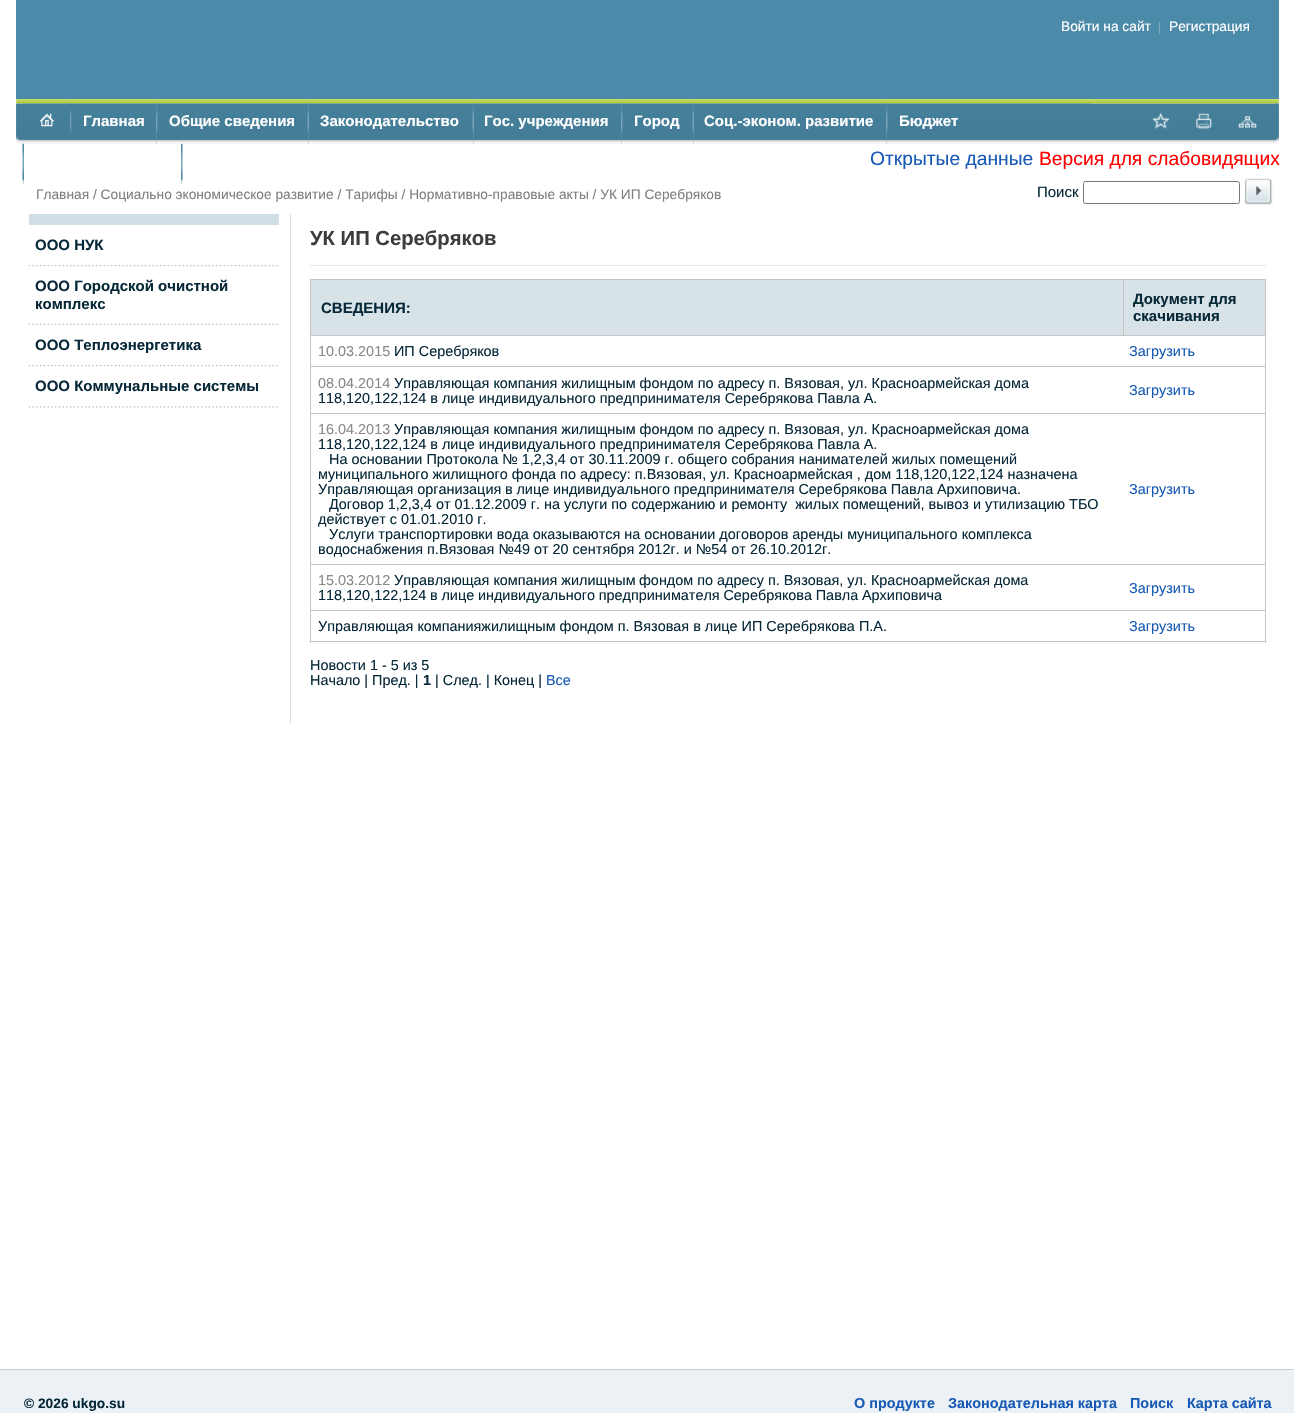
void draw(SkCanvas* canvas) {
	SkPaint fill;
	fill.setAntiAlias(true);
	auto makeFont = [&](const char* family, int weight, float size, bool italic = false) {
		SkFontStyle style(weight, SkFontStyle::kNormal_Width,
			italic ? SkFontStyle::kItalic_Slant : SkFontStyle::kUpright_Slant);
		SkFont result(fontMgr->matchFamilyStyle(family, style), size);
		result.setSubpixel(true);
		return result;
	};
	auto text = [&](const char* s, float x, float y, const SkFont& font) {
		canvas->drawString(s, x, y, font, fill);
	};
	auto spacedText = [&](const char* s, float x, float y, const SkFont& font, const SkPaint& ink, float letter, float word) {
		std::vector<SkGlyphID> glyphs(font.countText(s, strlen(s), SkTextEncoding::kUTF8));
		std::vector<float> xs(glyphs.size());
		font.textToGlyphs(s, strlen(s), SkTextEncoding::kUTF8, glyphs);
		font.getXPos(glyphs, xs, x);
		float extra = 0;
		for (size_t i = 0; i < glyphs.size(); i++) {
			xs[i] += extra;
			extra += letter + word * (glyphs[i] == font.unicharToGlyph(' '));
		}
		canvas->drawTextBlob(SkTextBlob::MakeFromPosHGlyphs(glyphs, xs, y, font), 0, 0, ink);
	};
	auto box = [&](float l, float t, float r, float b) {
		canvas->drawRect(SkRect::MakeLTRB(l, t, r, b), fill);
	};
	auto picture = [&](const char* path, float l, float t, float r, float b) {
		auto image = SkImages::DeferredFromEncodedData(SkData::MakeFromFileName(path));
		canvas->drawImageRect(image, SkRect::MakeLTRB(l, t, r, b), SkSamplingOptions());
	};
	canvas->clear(0xFFFFFFFF);
	fill.setColor(0xFF4B8BA9);
	box(16, 0, 1279, 99);
	picture("image0.png", 16, 99, 1279, 104);
	picture("image1.png", 16, 103, 1279, 144);
	picture("image2.png", 16, 103, 20, 144);
	picture("image3.png", 22, 103, 1092, 144);
	picture("image4.png", 40, 113, 54, 127);
	picture("image5.png", 70, 103, 72, 144);
	fill.setColor(0xFF71A7C0);
	box(156, 104, 157, 144);
	picture("image6.png", 156, 103, 158, 144);
	box(308, 104, 309, 144);
	picture("image7.png", 307, 103, 309, 144);
	box(473, 104, 474, 144);
	picture("image7.png", 472, 103, 474, 144);
	box(621, 104, 622, 144);
	picture("image6.png", 621, 103, 623, 144);
	box(693, 104, 694, 144);
	picture("image7.png", 692, 103, 694, 144);
	box(886, 104, 887, 144);
	picture("image6.png", 886, 103, 888, 144);
	box(23, 144, 24, 184);
	picture("image8.png", 22, 143, 24, 184);
	box(181, 144, 182, 184);
	picture("image9.png", 181, 143, 183, 184);
	picture("image10.png", 1275, 103, 1279, 144);
	picture("image11.png", 1152, 112, 1170, 129);
	picture("image12.png", 1196, 113, 1212, 129);
	picture("image13.png", 1238, 116, 1257, 128);
	fill.setStyle(SkPaint::kStroke_Style);
	fill.setStrokeWidth(1);
	fill.setColor(0xFF767676);
	canvas->drawRoundRect(SkRect::MakeLTRB(1083.5f, 181.5f, 1239.5f, 203.5f), 2, 2, fill);
	picture("image14.png", 1245, 178, 1273, 205);
	fill.setStyle(SkPaint::kFill_Style);
	fill.setColor(0xFFDBDBDB);
	box(290, 214, 291, 723);
	fill.setColor(0xFFD1DEE5);
	box(29, 214, 279, 225);
	picture("image15.png", 28, 265, 278, 267);
	picture("image16.png", 28, 323, 278, 325);
	picture("image15.png", 28, 365, 278, 367);
	picture("image17.png", 28, 406, 278, 408);
	fill.setColor(0xFFE4E7E9);
	box(310, 265, 1266, 266);
	fill.setColor(0xFFC4C4C4);
	box(310, 279, 1266, 280);
	box(1265, 279, 1266, 643);
	box(310, 641, 1266, 642);
	box(310, 279, 311, 643);
	fill.setColor(0xFFD8E3E8);
	box(311, 280, 1123, 335);
	box(1124, 280, 1265, 335);
	fill.setColor(0xFFC4C4C4);
	box(310, 335, 1266, 336);
	box(1123, 279, 1124, 336);
	box(310, 366, 1266, 367);
	box(310, 413, 1266, 414);
	box(310, 564, 1266, 565);
	box(310, 610, 1266, 611);
	fill.setColor(0xFFEBF1F4);
	box(0, 1370, 1294, 1413);
	fill.setColor(0xFFCCCCCC);
	box(0, 1369, 1294, 1370);
	auto font1 = makeFont("Liberation Sans", 400, 13.75f);
	fill.setColor(0xFFFFFFFF);
	text("Войти на сайт", 1061, 31, font1);
	auto font2 = makeFont("Liberation Sans", 400, 12);
	fill.setColor(0xFF81ACC0);
	text("|", 1158, 31, font2);
	fill.setColor(0xFFFFFFFF);
	text("Регистрация", 1169, 31, font1);
	auto font3 = makeFont("Liberation Sans", 700, 15);
	text("Главная", 83, 126, font3);
	text("Общие сведения", 169, 126, font3);
	text("Законодательство", 320, 126, font3);
	text("Гос. учреждения", 484, 126, font3);
	text("Город", 634, 126, font3);
	text("Соц.-эконом. развитие", 704, 126, font3);
	text("Бюджет", 899, 126, font3);
	auto font4 = makeFont("Liberation Sans", 400, 19.25f);
	fill.setColor(0xFF1759B4);
	text("Открытые данные", 870, 165, font4);
	fill.setColor(0xFFFF0000);
	text("Версия для слабовидящих", 1039, 165, font4);
	fill.setColor(0xFF7F7F7F);
	text("Главная / Социально экономическое развитие / Тарифы / Нормативно-правовые акты / УК ИП Серебряков", 36, 199, font1);
	auto font5 = makeFont("Liberation Sans", 400, 15);
	fill.setColor(0xFF072838);
	text("Поиск", 1037, 197, font5);
	text("ООО НУК", 35, 250, font3);
	text("ООО Городской очистной", 35, 291, font3);
	text("комплекс", 35, 309, font3);
	text("ООО Теплоэнергетика", 35, 350, font3);
	text("ООО Коммунальные системы", 35, 391, font3);
	auto font6 = makeFont("Liberation Sans", 700, 20.25f);
	fill.setColor(0xFF3D3D3D);
	text("УК ИП Серебряков", 310, 245, font6);
	fill.setColor(0xFF072838);
	text("СВЕДЕНИЯ:", 321, 313, font3);
	text("Документ для", 1133, 304, font3);
	text("скачивания", 1133, 321, font3);
	auto font7 = makeFont("Liberation Sans", 400, 14.42f);
	fill.setColor(0xFF8A8A8A);
	text("10.03.2015", 318, 356, font7);
	fill.setColor(0xFF072838);
	text("ИП Серебряков", 394, 356, font7);
	fill.setColor(0xFF1759B4);
	text("Загрузить", 1129, 356, font7);
	fill.setColor(0xFF8A8A8A);
	text("08.04.2014", 318, 388, font7);
	fill.setColor(0xFF072838);
	text("Управляющая компания жилищным фондом по адресу п. Вязовая, ул. Красноармейская дома", 394, 388, font7);
	text("118,120,122,124 в лице индивидуального предпринимателя Серебрякова Павла А.", 318, 403, font7);
	fill.setColor(0xFF1759B4);
	text("Загрузить", 1129, 395, font7);
	fill.setColor(0xFF8A8A8A);
	text("16.04.2013", 318, 434, font7);
	fill.setColor(0xFF072838);
	text("Управляющая компания жилищным фондом по адресу п. Вязовая, ул. Красноармейская дома", 394, 434, font7);
	text("118,120,122,124 в лице индивидуального предпринимателя Серебрякова Павла А.", 318, 449, font7);
	text("На основании Протокола № 1,2,3,4 от 30.11.2009 г. общего собрания нанимателей жилых помещений", 329, 464, font7);
	text("муниципального жилищного фонда по адресу: п.Вязовая, ул. Красноармейская , дом 118,120,122,124 назначена", 318, 479, font7);
	spacedText("Управляющая организация в лице индивидуального предпринимателя Серебрякова Павла Архиповича.", 318, 494, font7, fill, 0, -0.25f);
	text("Договор 1,2,3,4 от 01.12.2009 г. на услуги по содержанию и ремонту  жилых помещений, вывоз и утилизацию ТБО", 329, 509, font7);
	text("действует с 01.01.2010 г.", 318, 524, font7);
	text("Услуги транспортировки вода оказываются на основании договоров аренды муниципального комплекса", 329, 539, font7);
	text("водоснабжения п.Вязовая №49 от 20 сентября 2012г. и №54 от 26.10.2012г.", 318, 554, font7);
	fill.setColor(0xFF1759B4);
	text("Загрузить", 1129, 494, font7);
	fill.setColor(0xFF8A8A8A);
	text("15.03.2012", 318, 585, font7);
	fill.setColor(0xFF072838);
	text("Управляющая компания жилищным", 394, 585, font7);
	text("фондом по адресу п. Вязовая, ул. Красноармейская дома", 639, 585, font7);
	spacedText("118,120,122,124 в лице индивидуального предпринимателя Серебрякова Павла Архиповича", 318, 600, font7, fill, 0, -0.25f);
	fill.setColor(0xFF1759B4);
	text("Загрузить", 1129, 593, font7);
	fill.setColor(0xFF072838);
	text("Управляющая компанияжилищным фондом п. Вязовая в лице ИП Серебрякова П.А.", 318, 631, font7);
	fill.setColor(0xFF1759B4);
	text("Загрузить", 1129, 631, font7);
	auto font8 = makeFont("Liberation Sans", 400, 14.4f);
	fill.setColor(0xFF072838);
	text("Новости 1 - 5 из 5", 310, 670, font8);
	text("Начало | Пред. |", 310, 685, font8);
	auto font9 = makeFont("Liberation Sans", 700, 14.4f);
	text("1", 423, 685, font9);
	text("| След. | Конец |", 435, 685, font8);
	fill.setColor(0xFF1759B4);
	text("Все", 546, 685, font7);
	auto font10 = makeFont("Liberation Sans", 700, 13.75f);
	fill.setColor(0xFF072838);
	text("© 2026 ukgo.su", 24, 1408, font10);
	fill.setColor(0xFF1759B4);
	text("О продукте", 854, 1408, font9);
	text("Законодательная карта", 948, 1408, font9);
	text("Поиск", 1130, 1408, font9);
	text("Карта сайта", 1187, 1408, font9);
}
